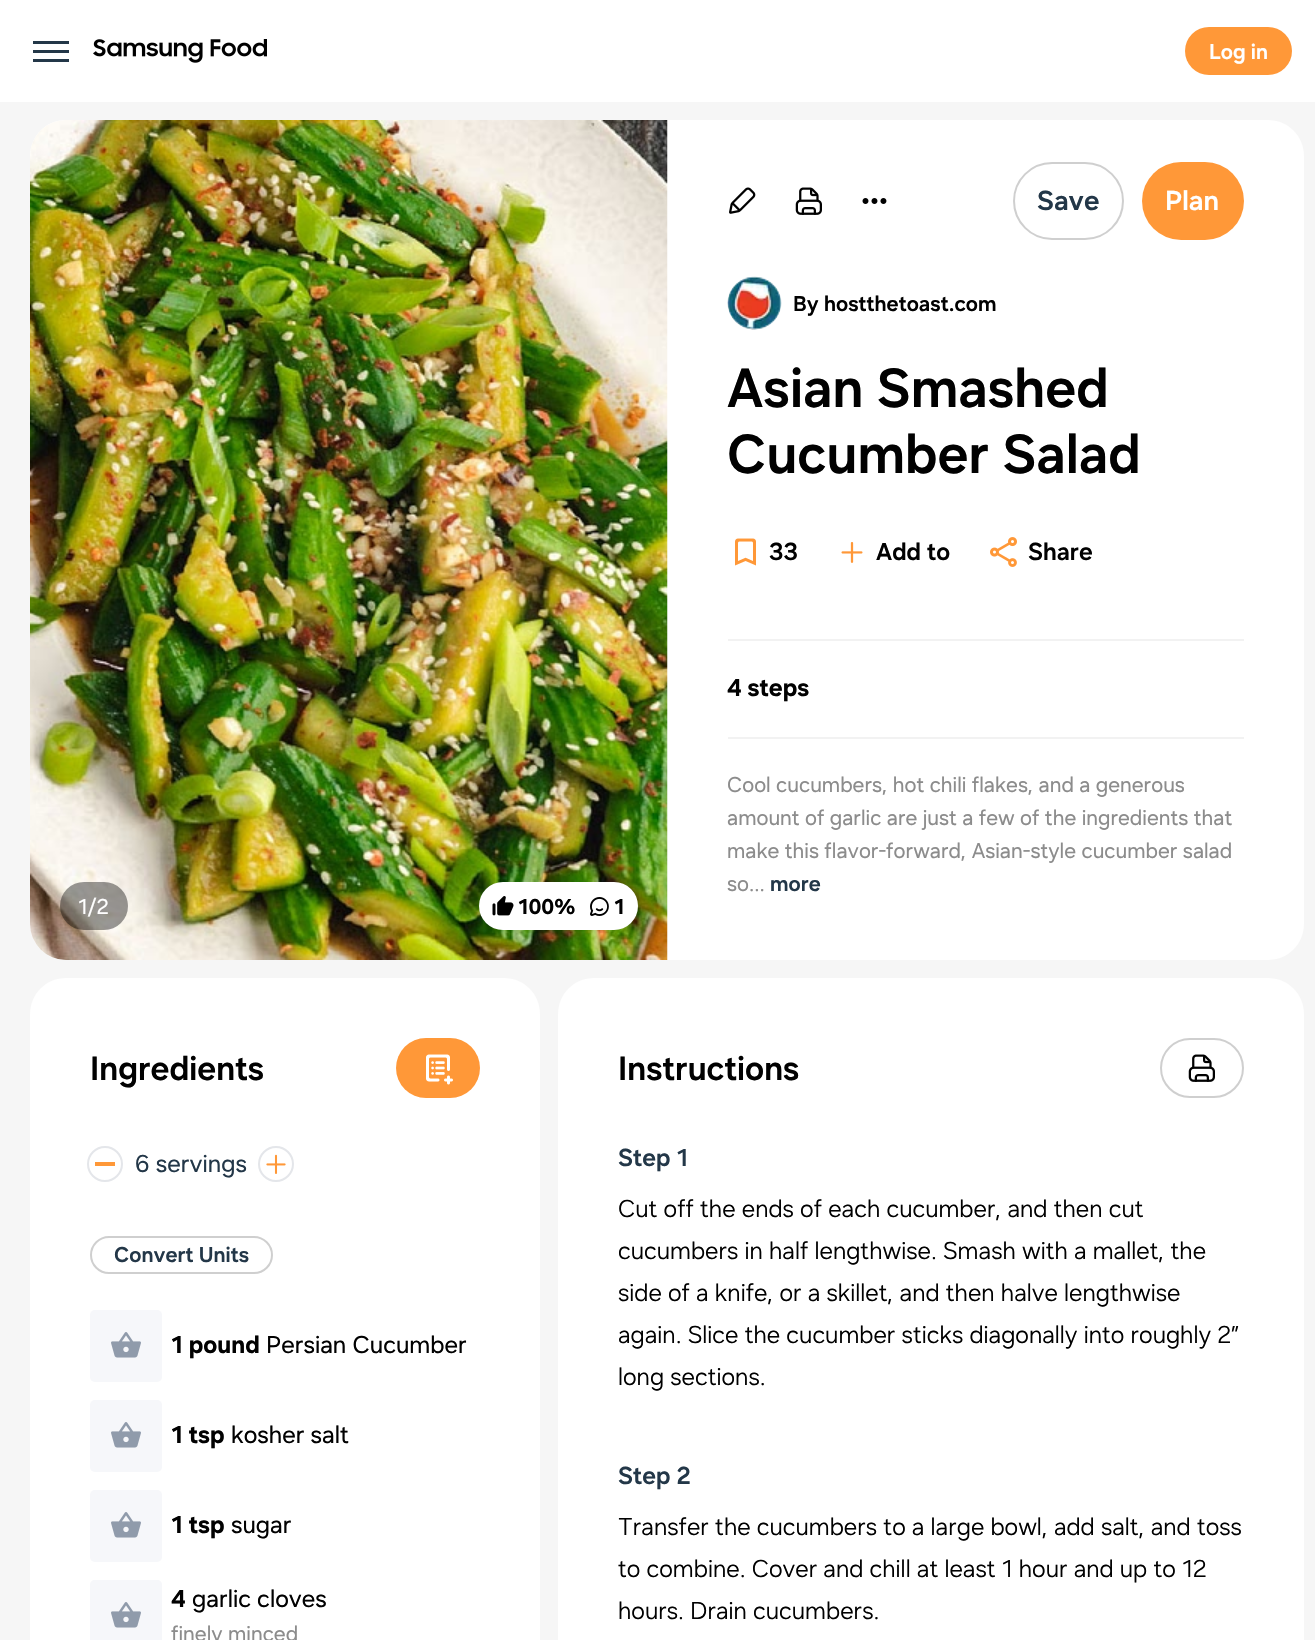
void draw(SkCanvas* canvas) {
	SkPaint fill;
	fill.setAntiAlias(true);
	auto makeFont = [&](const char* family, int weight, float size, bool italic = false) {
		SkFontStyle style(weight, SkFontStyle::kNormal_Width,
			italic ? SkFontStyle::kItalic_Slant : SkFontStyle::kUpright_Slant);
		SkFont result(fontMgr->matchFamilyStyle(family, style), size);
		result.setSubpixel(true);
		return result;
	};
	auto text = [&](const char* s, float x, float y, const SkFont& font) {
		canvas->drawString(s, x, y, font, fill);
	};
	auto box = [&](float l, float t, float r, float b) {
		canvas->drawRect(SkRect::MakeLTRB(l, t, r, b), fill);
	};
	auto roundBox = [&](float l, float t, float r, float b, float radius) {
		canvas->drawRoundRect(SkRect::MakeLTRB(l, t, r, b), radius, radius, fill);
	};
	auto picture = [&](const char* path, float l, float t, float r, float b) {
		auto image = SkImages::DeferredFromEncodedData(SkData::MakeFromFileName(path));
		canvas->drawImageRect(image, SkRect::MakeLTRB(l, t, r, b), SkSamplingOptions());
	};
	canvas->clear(0xFFF6F6F6);
	fill.setColor(0xFFFFFFFF);
	box(0, 0, 1315, 102);
	fill.setColor(0xFF233748);
	box(33, 41, 69, 44);
	box(33, 50, 69, 53);
	box(33, 59, 69, 62);
	picture("image0.png", 93, 39, 267, 63);
	fill.setColor(0xFFFF9838);
	roundBox(1185, 27, 1292, 75, 24);
	fill.setColor(0xFFFFFFFF);
	canvas->drawPath(SkPathBuilder().moveTo(668, 120).lineTo(1268, 120).cubicTo(1288, 120, 1304, 136, 1304, 156).lineTo(1304, 924).cubicTo(1304, 944, 1288, 960, 1268, 960).lineTo(668, 960).close().detach(), fill);
	picture("image1.png", 729, 187, 756, 214);
	picture("image2.png", 795, 187, 822, 215);
	picture("image3.png", 862, 198, 887, 204);
	fill.setStyle(SkPaint::kStroke_Style);
	fill.setStrokeWidth(2);
	fill.setColor(0xFFCFCFCF);
	canvas->drawRoundRect(SkRect::MakeLTRB(1014, 163, 1123, 239), 38, 38, fill);
	fill.setStyle(SkPaint::kFill_Style);
	fill.setColor(0xFFFF9838);
	roundBox(1142, 162, 1244, 240, 39);
	picture("image4.png", 727, 276, 782, 330);
	picture("image5.png", 735, 538, 756, 566);
	picture("image6.png", 841, 542, 863, 563);
	picture("image7.png", 990, 537, 1017, 567);
	fill.setColor(0xFFF2F2F2);
	box(728, 639, 1244, 641);
	box(728, 737, 1244, 739);
	fill.setColor(0xFFFFFFFF);
	canvas->drawPath(SkPathBuilder().moveTo(66, 120).lineTo(668, 120).lineTo(668, 960).lineTo(66, 960).cubicTo(46, 960, 30, 944, 30, 924).lineTo(30, 156).cubicTo(30, 136, 46, 120, 66, 120).close().detach(), fill);
	picture("image8.png", 30, 120, 668, 960);
	fill.setColor(0x66010101);
	roundBox(60, 882, 128, 930, 24);
	fill.setColor(0xFFFFFFFF);
	roundBox(479, 882, 638, 930, 24);
	picture("image9.png", 492, 896, 514, 916);
	picture("image10.png", 590, 897, 609, 916);
	canvas->drawPath(SkPathBuilder().moveTo(66, 978).lineTo(504, 978).cubicTo(524, 978, 540, 994, 540, 1014).lineTo(540, 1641).lineTo(30, 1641).lineTo(30, 1014).cubicTo(30, 994, 46, 978, 66, 978).close().detach(), fill);
	fill.setColor(0xFFFF9838);
	roundBox(396, 1038, 480, 1098, 30);
	picture("image11.png", 426, 1054, 453, 1085);
	fill.setStyle(SkPaint::kStroke_Style);
	fill.setColor(0xFFE4E6EA);
	canvas->drawCircle(105, 1164, 17, fill);
	fill.setStyle(SkPaint::kFill_Style);
	fill.setColor(0xFFFF9838);
	box(95, 1162, 115, 1166);
	fill.setStyle(SkPaint::kStroke_Style);
	fill.setColor(0xFFE4E6EA);
	canvas->drawCircle(276, 1164, 17, fill);
	picture("image12.png", 266, 1154, 286, 1174);
	fill.setColor(0xFFCFCFCF);
	canvas->drawRoundRect(SkRect::MakeLTRB(91, 1237, 272, 1273), 18, 18, fill);
	fill.setStyle(SkPaint::kFill_Style);
	fill.setColor(0xFFF6F7FA);
	roundBox(90, 1310, 162, 1382, 5);
	picture("image13.png", 111, 1332, 141, 1358);
	roundBox(90, 1400, 162, 1472, 5);
	picture("image13.png", 111, 1422, 141, 1448);
	roundBox(90, 1490, 162, 1562, 5);
	picture("image13.png", 111, 1512, 141, 1538);
	canvas->drawPath(SkPathBuilder().moveTo(95, 1580).lineTo(157, 1580).cubicTo(160, 1580, 162, 1582, 162, 1585).lineTo(162, 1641).lineTo(90, 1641).lineTo(90, 1585).cubicTo(90, 1582, 92, 1580, 95, 1580).close().detach(), fill);
	picture("image13.png", 111, 1602, 141, 1628);
	fill.setColor(0xFFFFFFFF);
	canvas->drawPath(SkPathBuilder().moveTo(594, 978).lineTo(1268, 978).cubicTo(1288, 978, 1304, 994, 1304, 1014).lineTo(1304, 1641).lineTo(558, 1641).lineTo(558, 1014).cubicTo(558, 994, 574, 978, 594, 978).close().detach(), fill);
	fill.setStyle(SkPaint::kStroke_Style);
	fill.setColor(0xFFCFCFCF);
	canvas->drawRoundRect(SkRect::MakeLTRB(1161, 1039, 1243, 1097), 29, 29, fill);
	picture("image2.png", 1188, 1054, 1215, 1082);
	auto font1 = makeFont("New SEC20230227", 600, 21);
	fill.setStyle(SkPaint::kFill_Style);
	fill.setColor(0xFFFFFFFF);
	text("Log in", 1209, 59, font1);
	auto font2 = makeFont("New SEC20230227", 600, 27);
	fill.setColor(0xFF233748);
	text("Save", 1037, 210, font2);
	fill.setColor(0xFFFFFFFF);
	text("Plan", 1165, 210, font2);
	fill.setColor(0xFF010101);
	text("By hostthetoast.com", 793, 311, font1);
	auto font3 = makeFont("New SEC20230227", 600, 54);
	text("Asian Smashed", 727, 407, font3);
	text("Cucumber Salad", 727, 473, font3);
	auto font4 = makeFont("New SEC20230227", 600, 24);
	text("33", 769, 560, font4);
	text("Add to", 876, 560, font4);
	text("Share", 1028, 560, font4);
	auto font5 = makeFont("New SEC20230227", 700, 24);
	text("4 steps", 727, 696, font5);
	auto font6 = makeFont("New SEC20230227", 400, 21);
	fill.setColor(0xFF8C8C8C);
	text("Cool cucumbers, hot chili flakes, and a generous", 727, 792, font6);
	text("amount of garlic are just a few of the ingredients that", 727, 825, font6);
	text("make this flavor-forward, Asian-style cucumber salad", 727, 858, font6);
	text("so...", 727, 891, font6);
	fill.setColor(0xFF233748);
	text("more", 770, 891, font1);
	fill.setColor(0xFFFFFFFF);
	text("1/2", 78, 914, font6);
	auto font7 = makeFont("New SEC20230227", 700, 21);
	fill.setColor(0xFF010101);
	text("100%", 518, 914, font7);
	text("1", 614, 914, font7);
	auto font8 = makeFont("New SEC20230227", 600, 33);
	text("Ingredients", 90, 1080, font8);
	auto font9 = makeFont("New SEC20230227", 400, 24);
	fill.setColor(0xFF233748);
	text("6 servings", 135, 1172, font9);
	text("Convert Units", 114, 1262, font1);
	fill.setColor(0xFF010101);
	text("1 pound", 171, 1353, font5);
	text("Persian Cucumber", 266, 1353, font9);
	text("1 tsp", 171, 1443, font5);
	text("kosher salt", 231, 1443, font9);
	text("1 tsp", 171, 1533, font5);
	text("sugar", 231, 1533, font9);
	text("4", 171, 1607, font5);
	text("garlic cloves", 192, 1607, font9);
	fill.setColor(0xFF8C8C8C);
	text("finely minced", 171, 1641, font6);
	fill.setColor(0xFF010101);
	text("Instructions", 618, 1080, font8);
	fill.setColor(0xFF233748);
	text("Step 1", 618, 1166, font4);
	auto font10 = makeFont("New SEC20230227", 300, 24);
	fill.setColor(0xFF010101);
	text("Cut off the ends of each cucumber, and then cut", 618, 1217, font10);
	text("cucumbers in half lengthwise. Smash with a mallet, the", 618, 1259, font10);
	text("side of a knife, or a skillet, and then halve lengthwise", 618, 1301, font10);
	text("again. Slice the cucumber sticks diagonally into roughly 2”", 618, 1343, font10);
	text("long sections.", 618, 1385, font10);
	fill.setColor(0xFF233748);
	text("Step 2", 618, 1484, font4);
	fill.setColor(0xFF010101);
	text("Transfer the cucumbers to a large bowl, add salt, and toss", 618, 1535, font10);
	text("to combine. Cover and chill at least 1 hour and up to 12", 618, 1577, font10);
	text("hours. Drain cucumbers.", 618, 1619, font10);
}
